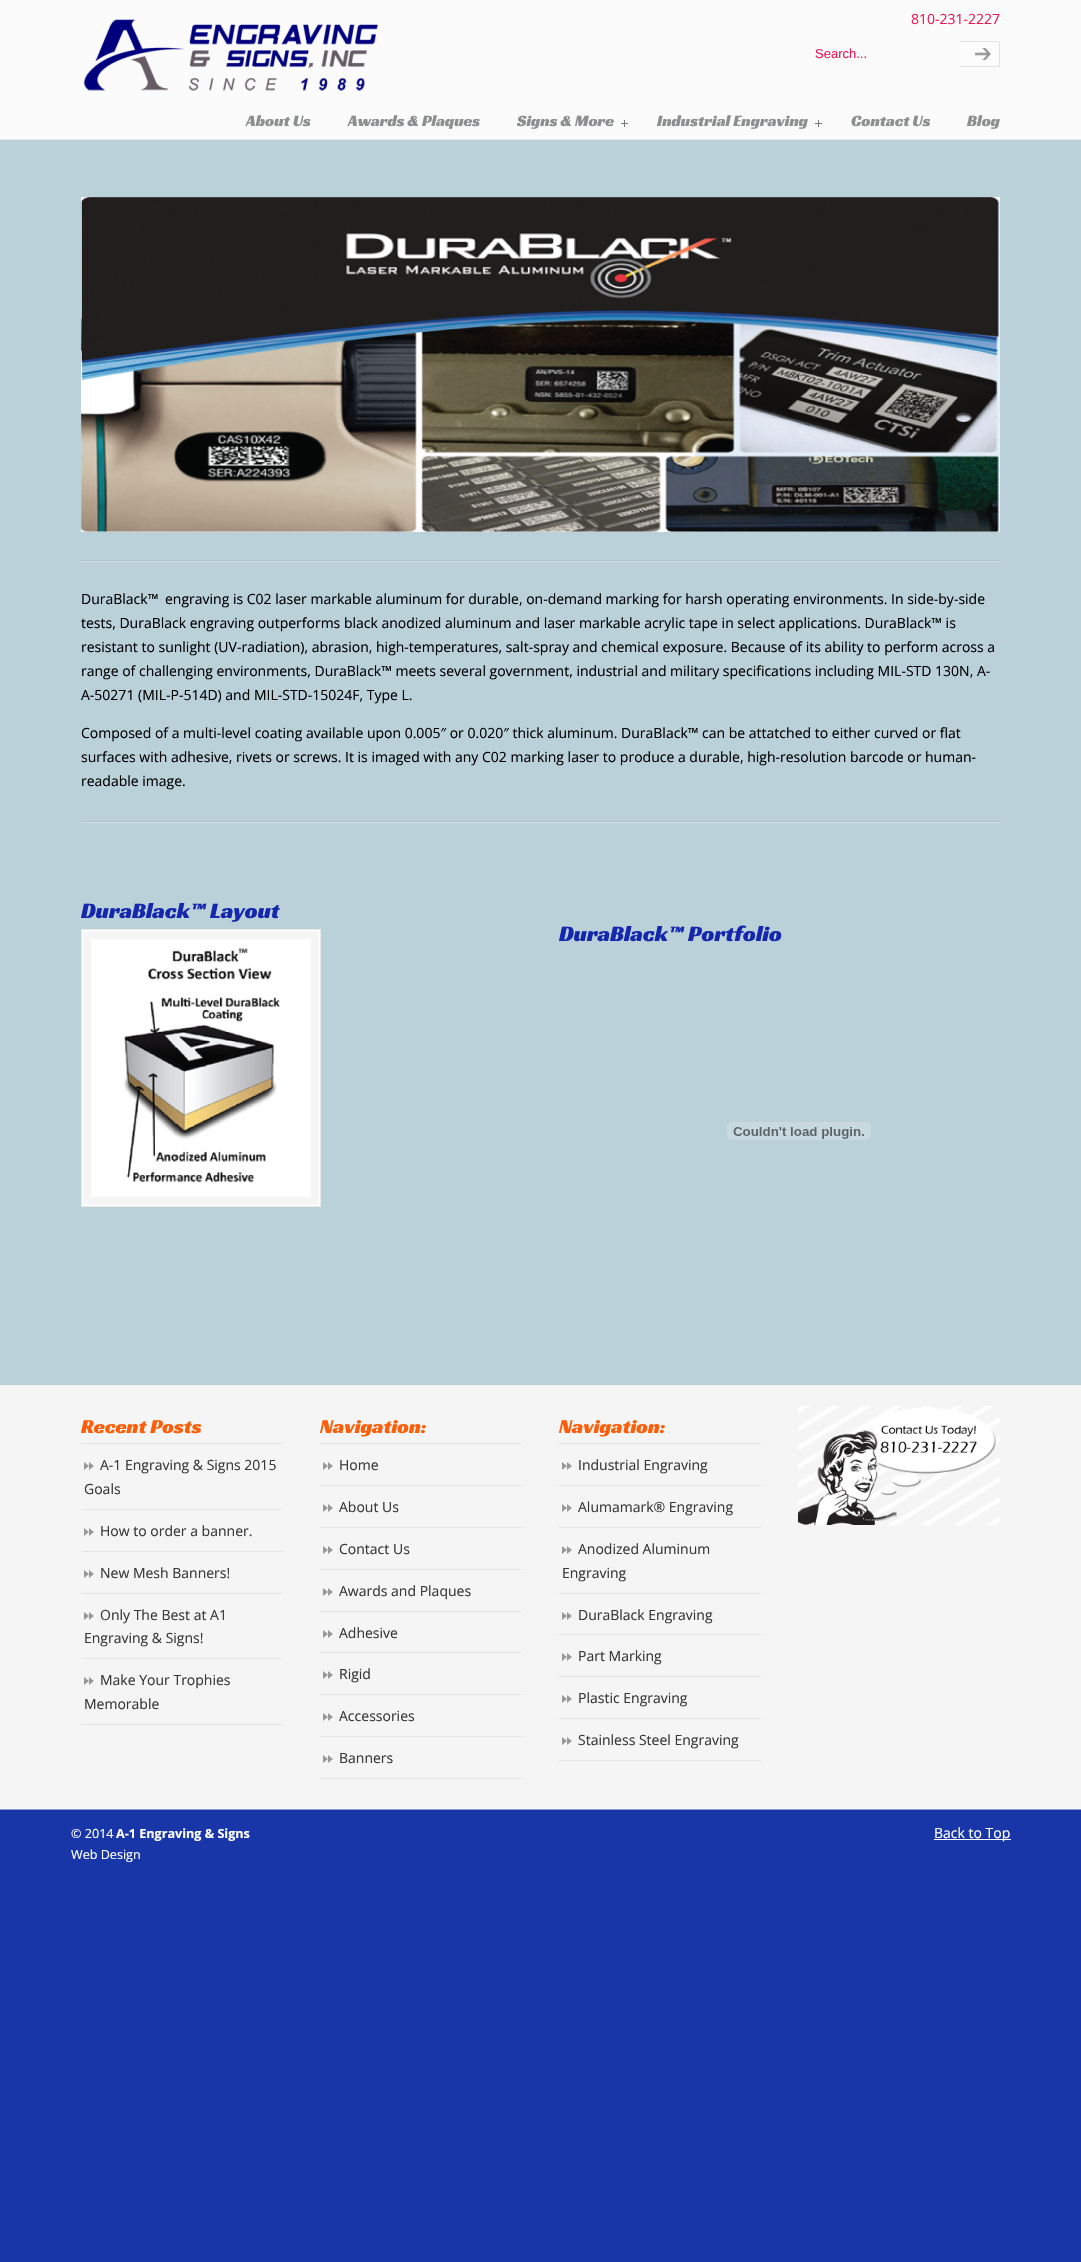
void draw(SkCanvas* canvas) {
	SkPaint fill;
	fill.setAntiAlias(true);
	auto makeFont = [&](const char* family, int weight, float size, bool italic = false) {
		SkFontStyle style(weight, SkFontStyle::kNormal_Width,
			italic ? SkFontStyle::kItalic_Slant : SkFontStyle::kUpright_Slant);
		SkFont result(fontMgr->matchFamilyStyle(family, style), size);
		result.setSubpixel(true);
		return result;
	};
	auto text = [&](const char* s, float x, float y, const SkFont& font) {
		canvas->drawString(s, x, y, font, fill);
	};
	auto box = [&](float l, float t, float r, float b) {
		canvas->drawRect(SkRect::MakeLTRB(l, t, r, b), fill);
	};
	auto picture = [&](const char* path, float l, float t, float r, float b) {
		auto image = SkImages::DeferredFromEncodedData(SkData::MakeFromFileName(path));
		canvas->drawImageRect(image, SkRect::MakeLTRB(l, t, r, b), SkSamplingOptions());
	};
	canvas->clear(0xFF1936A8);
	fill.setColor(0xFFFBFBFB);
	box(0, 0, 1081, 139);
	picture("image0.png", 83, 19, 379, 91);
	picture("image1.png", 960, 41, 1000, 67);
	fill.setColor(0xFFE9E9E9);
	box(0, 139, 1081, 140);
	picture("image2.png", 621, 120, 628, 127);
	picture("image2.png", 815, 120, 822, 127);
	fill.setColor(0xFFBAD1D9);
	box(0, 140, 1081, 1385);
	picture("image3.png", 81, 197, 1000, 532);
	picture("image4.png", 81, 560, 1001, 562);
	picture("image4.png", 81, 821, 1001, 823);
	fill.setColor(0xFFF6F6F6);
	box(83, 931, 319, 1205);
	fill.setStyle(SkPaint::kStroke_Style);
	fill.setStrokeWidth(1);
	fill.setColor(0xFFEAEAEA);
	canvas->drawRect(SkRect::MakeLTRB(81.5f, 929.5f, 320.5f, 1206.5f), fill);
	fill.setColor(0xFFFFFFFF);
	canvas->drawRect(SkRect::MakeLTRB(82.5f, 930.5f, 319.5f, 1205.5f), fill);
	picture("image5.png", 91, 939, 311, 1197);
	picture("image6.png", 727, 1122, 871, 1140);
	fill.setStyle(SkPaint::kFill_Style);
	fill.setColor(0xFFF5F5F5);
	box(0, 1385, 1081, 1809);
	fill.setColor(0xFFE4E4E4);
	box(81, 1443, 283, 1444);
	box(81, 1509, 283, 1510);
	picture("image7.png", 84, 1462, 94, 1470);
	box(81, 1551, 283, 1552);
	picture("image7.png", 84, 1528, 94, 1536);
	box(81, 1593, 283, 1594);
	picture("image7.png", 84, 1570, 94, 1578);
	box(81, 1658, 283, 1659);
	picture("image7.png", 84, 1612, 94, 1620);
	box(81, 1724, 283, 1725);
	picture("image7.png", 84, 1677, 94, 1685);
	box(320, 1443, 522, 1444);
	box(320, 1485, 522, 1486);
	picture("image7.png", 323, 1462, 333, 1470);
	box(320, 1527, 522, 1528);
	picture("image7.png", 323, 1504, 333, 1512);
	box(320, 1569, 522, 1570);
	picture("image7.png", 323, 1546, 333, 1554);
	box(320, 1611, 522, 1612);
	picture("image7.png", 323, 1588, 333, 1596);
	box(320, 1652, 522, 1653);
	picture("image7.png", 323, 1630, 333, 1638);
	box(320, 1694, 522, 1695);
	picture("image7.png", 323, 1671, 333, 1679);
	box(320, 1736, 522, 1737);
	picture("image7.png", 323, 1713, 333, 1721);
	box(320, 1778, 522, 1779);
	picture("image7.png", 323, 1755, 333, 1763);
	box(559, 1443, 761, 1444);
	box(559, 1485, 761, 1486);
	picture("image7.png", 562, 1462, 572, 1470);
	box(559, 1527, 761, 1528);
	picture("image7.png", 562, 1504, 572, 1512);
	box(559, 1593, 761, 1594);
	picture("image7.png", 562, 1546, 572, 1554);
	box(559, 1634, 761, 1635);
	picture("image7.png", 562, 1612, 572, 1620);
	box(559, 1676, 761, 1677);
	picture("image7.png", 562, 1653, 572, 1661);
	box(559, 1718, 761, 1719);
	picture("image7.png", 562, 1695, 572, 1703);
	box(559, 1760, 761, 1761);
	picture("image7.png", 562, 1737, 572, 1745);
	picture("image8.png", 798, 1406, 1000, 1525);
	picture("image9.png", 0, 1809, 1081, 1811);
	fill.setColor(0xFFFFFFFF);
	box(934, 1839, 1011, 1840);
	auto font1 = makeFont("Liberation Sans", 400, 13);
	fill.setColor(0xFFEB1A55);
	text("Search...", 815, 58, font1);
	auto font2 = makeFont("Open Sans", 400, 14);
	text("810-231-2227", 911, 24, font2);
	auto font3 = makeFont("Racing Sans One", 400, 16);
	fill.setColor(0xFF8C8F8F);
	text("About Us", 246, 126, font3);
	text("Awards & Plaques", 348, 126, font3);
	text("Signs & More", 517, 126, font3);
	text("Industrial Engraving", 657, 126, font3);
	text("Contact Us", 851, 126, font3);
	text("Blog", 967, 126, font3);
	fill.setColor(0xFF000000);
	text("DuraBlack™", 81, 604, font2);
	text("engraving is C02 laser markable aluminum for durable, on-demand marking for harsh operating environments. In side-by-side", 165, 604, font2);
	text("tests, DuraBlack engraving outperforms black anodized aluminum and laser markable acrylic tape in select applications. DuraBlack™ is", 81, 628, font2);
	text("resistant to sunlight (UV-radiation), abrasion, high-temperatures, salt-spray and chemical exposure. Because of its ability to perform across a", 81, 652, font2);
	text("range of challenging environments, DuraBlack™ meets several government, industrial and military specifications including MIL-STD 130N, A-", 81, 676, font2);
	text("A-50271 (MIL-P-514D) and MIL-STD-15024F, Type L.", 81, 700, font2);
	text("Composed of a multi-level coating available upon 0.005″ or 0.020″ thick aluminum. DuraBlack™ can be attatched to either curved or flat", 81, 738, font2);
	text("surfaces with adhesive, rivets or screws. It is imaged with any C02 marking laser to produce a durable, high-resolution barcode or human-", 81, 762, font2);
	text("readable image.", 81, 786, font2);
	auto font4 = makeFont("Racing Sans One", 400, 22.4f);
	fill.setColor(0xFF1527AD);
	text("DuraBlack™ Layout", 81, 918, font4);
	text("DuraBlack™ Portfolio", 559, 941, font4);
	auto font5 = makeFont("Racing Sans One", 400, 20.25f);
	fill.setColor(0xFFFE5E08);
	text("Recent Posts", 81, 1433, font5);
	fill.setColor(0xFF383636);
	text("A-1 Engraving & Signs 2015", 100, 1470, font2);
	text("Goals", 84, 1494, font2);
	text("How to order a banner.", 100, 1536, font2);
	text("New Mesh Banners!", 100, 1578, font2);
	text("Only The Best at A1", 100, 1620, font2);
	text("Engraving & Signs!", 84, 1643, font2);
	text("Make Your Trophies", 100, 1685, font2);
	text("Memorable", 84, 1709, font2);
	fill.setColor(0xFFFE5E08);
	text("Navigation:", 320, 1433, font5);
	fill.setColor(0xFF383636);
	text("Home", 339, 1470, font2);
	text("About Us", 339, 1512, font2);
	text("Contact Us", 339, 1554, font2);
	text("Awards and Plaques", 339, 1596, font2);
	text("Adhesive", 339, 1638, font2);
	text("Rigid", 339, 1679, font2);
	text("Accessories", 339, 1721, font2);
	text("Banners", 339, 1763, font2);
	fill.setColor(0xFFFE5E08);
	text("Navigation:", 559, 1433, font5);
	fill.setColor(0xFF383636);
	text("Industrial Engraving", 578, 1470, font2);
	text("Alumamark® Engraving", 578, 1512, font2);
	text("Anodized Aluminum", 578, 1554, font2);
	text("Engraving", 562, 1578, font2);
	text("DuraBlack Engraving", 578, 1620, font2);
	text("Part Marking", 578, 1661, font2);
	text("Plastic Engraving", 578, 1703, font2);
	text("Stainless Steel Engraving", 578, 1745, font2);
	auto font6 = makeFont("Open Sans", 400, 12.6f);
	fill.setColor(0xFFFFFFFF);
	text("© 2014", 71, 1838, font6);
	auto font7 = makeFont("Open Sans", 700, 12.6f);
	text("A-1 Engraving & Signs", 116, 1838, font7);
	text("Web Design", 71, 1859, font6);
	text("Back to Top", 934, 1838, font2);
}
